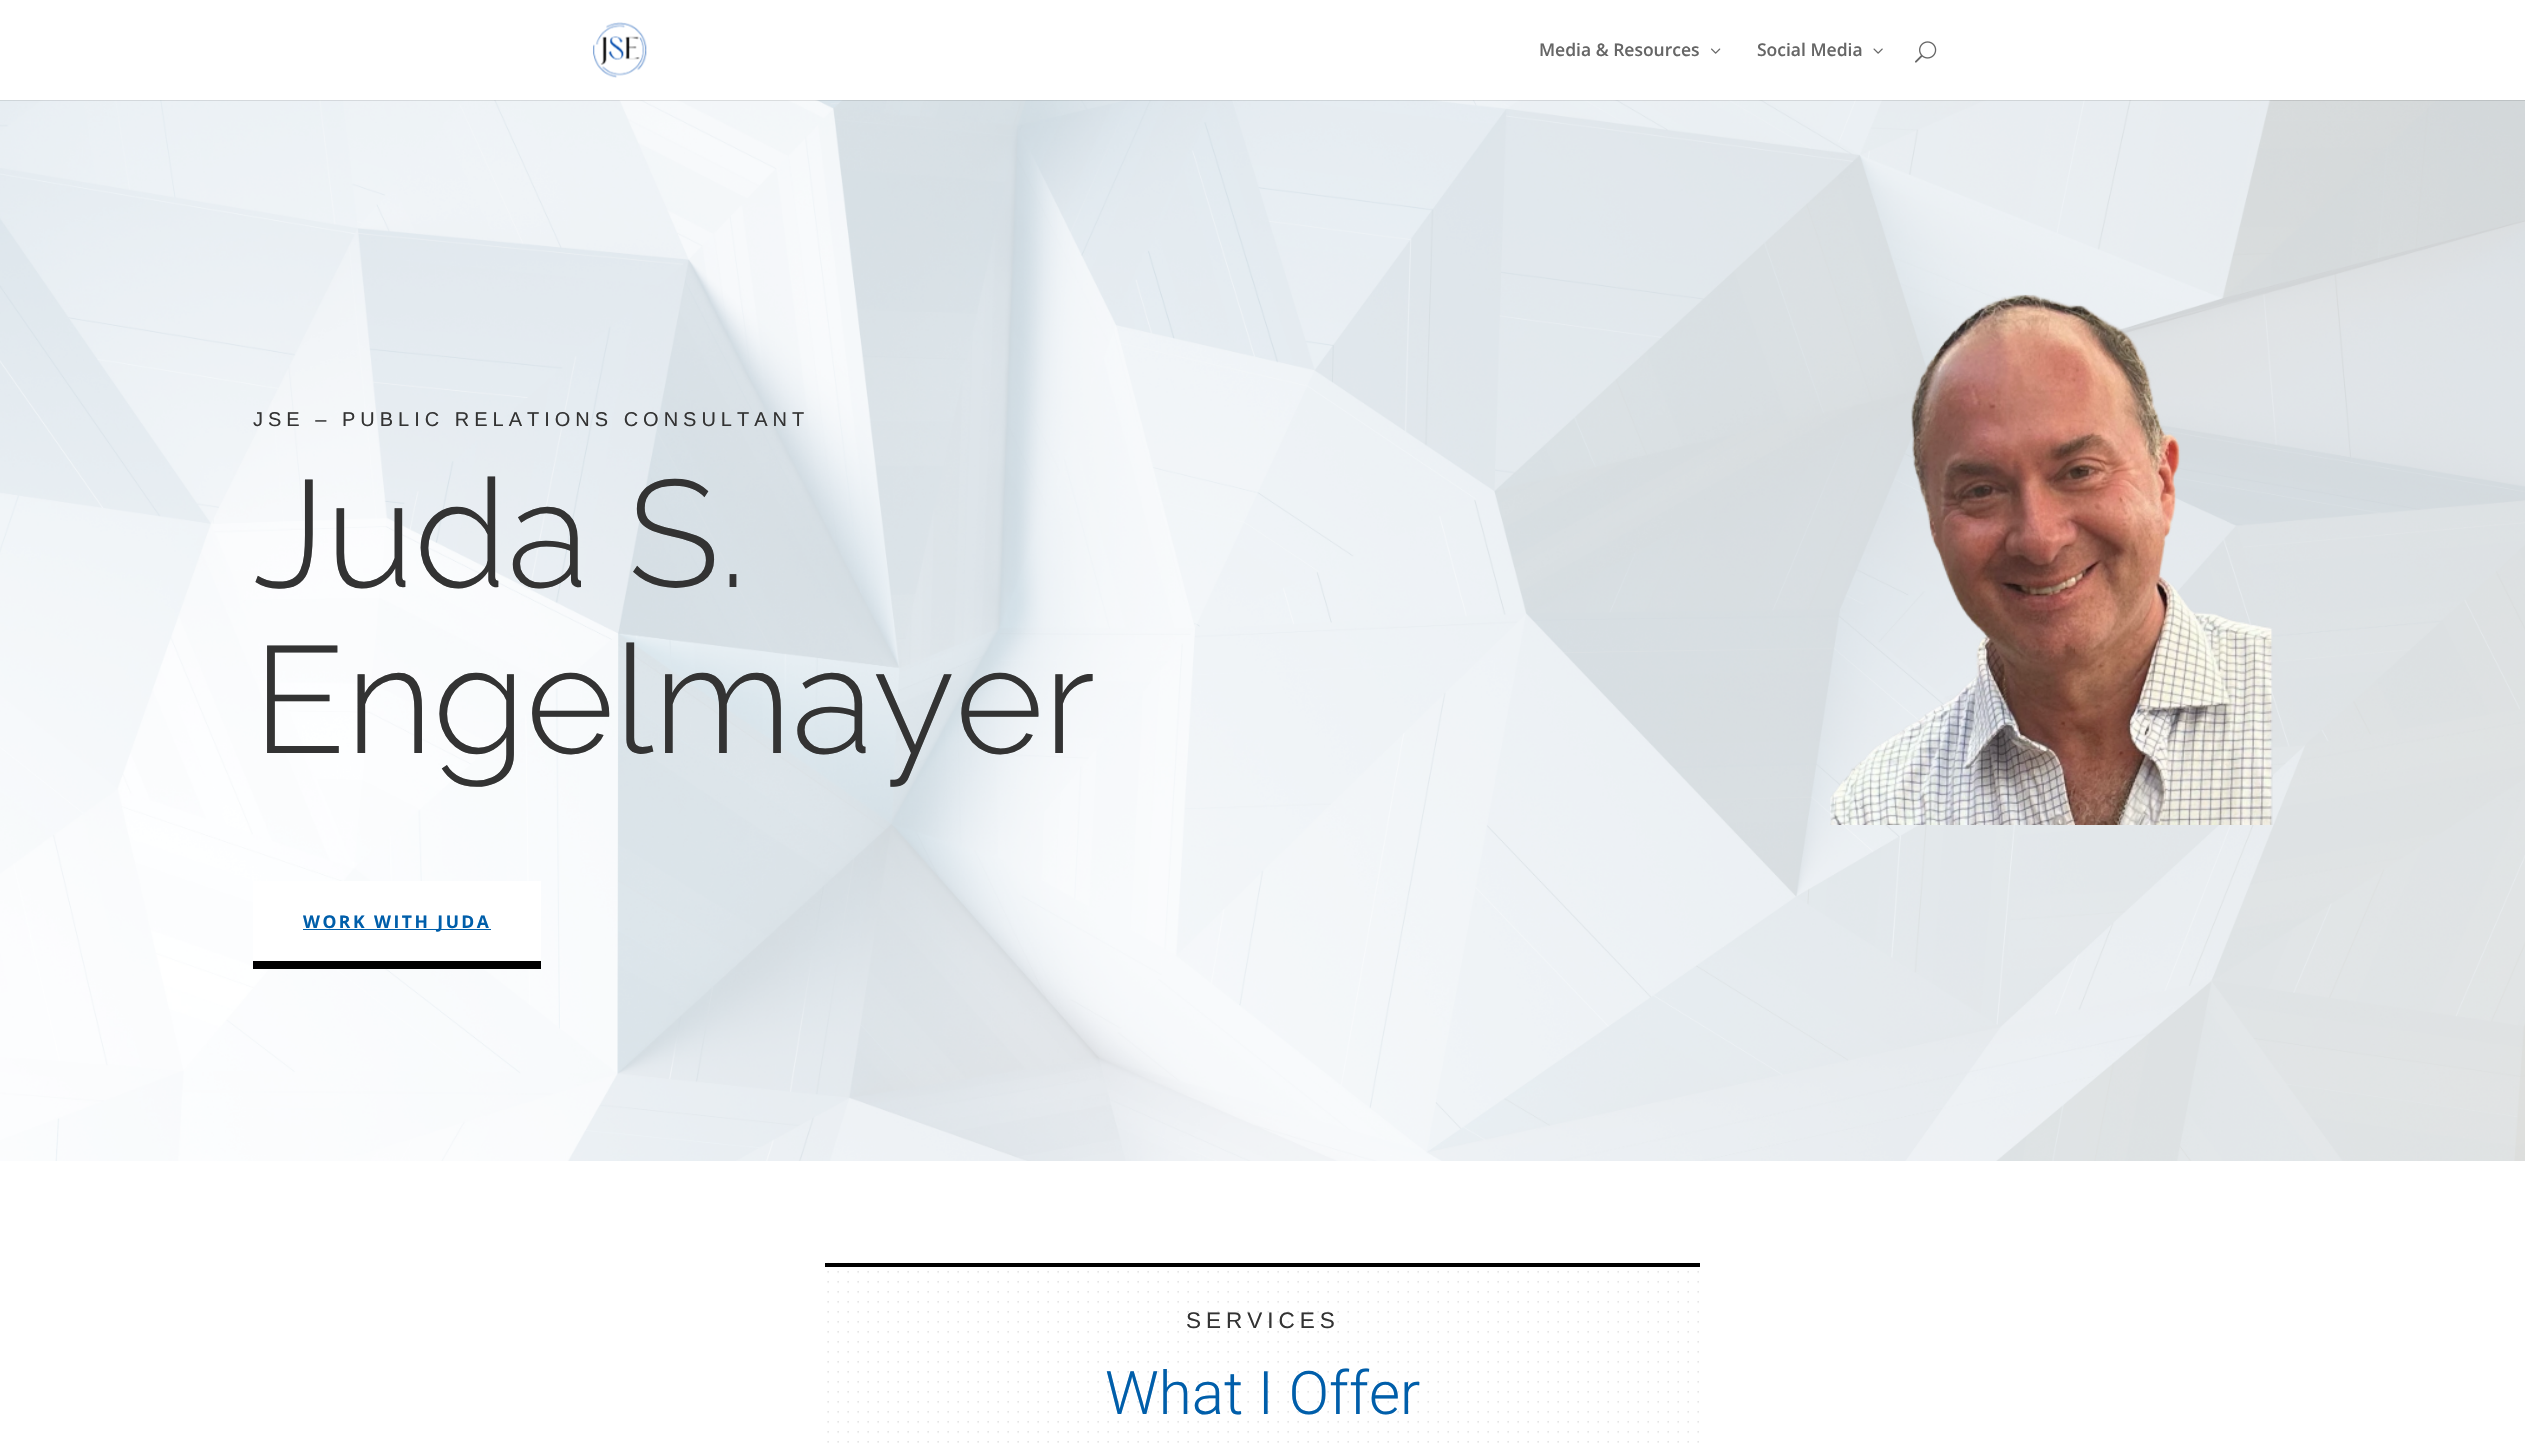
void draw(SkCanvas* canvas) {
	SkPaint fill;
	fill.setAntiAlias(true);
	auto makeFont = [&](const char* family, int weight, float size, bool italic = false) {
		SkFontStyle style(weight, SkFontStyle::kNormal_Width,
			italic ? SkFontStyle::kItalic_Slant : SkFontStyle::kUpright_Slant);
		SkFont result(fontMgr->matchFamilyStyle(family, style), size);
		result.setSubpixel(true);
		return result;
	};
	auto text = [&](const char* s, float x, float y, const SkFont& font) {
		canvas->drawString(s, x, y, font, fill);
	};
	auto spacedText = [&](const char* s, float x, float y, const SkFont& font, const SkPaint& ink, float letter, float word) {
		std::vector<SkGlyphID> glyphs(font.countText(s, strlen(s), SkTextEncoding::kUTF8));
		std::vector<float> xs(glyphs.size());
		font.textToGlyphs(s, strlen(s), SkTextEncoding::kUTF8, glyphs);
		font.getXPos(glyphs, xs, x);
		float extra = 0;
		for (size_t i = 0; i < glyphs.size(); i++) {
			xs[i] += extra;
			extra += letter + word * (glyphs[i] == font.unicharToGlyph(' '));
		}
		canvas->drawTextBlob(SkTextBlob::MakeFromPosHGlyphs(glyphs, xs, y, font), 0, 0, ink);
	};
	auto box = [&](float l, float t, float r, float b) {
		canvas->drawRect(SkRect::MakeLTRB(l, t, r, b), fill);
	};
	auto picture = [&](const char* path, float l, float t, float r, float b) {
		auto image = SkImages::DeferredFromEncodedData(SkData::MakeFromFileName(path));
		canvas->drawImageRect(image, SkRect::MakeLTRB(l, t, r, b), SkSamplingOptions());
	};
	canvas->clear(0xFFFFFFFF);
	picture("image4.png", 0, 100, 2525, 1161);
	fill.setColor(0x1A000000);
	box(0, 100, 2525, 101);
	picture("image0.png", 593, 22, 647, 78);
	picture("image1.png", 1711, 48, 1721, 54);
	picture("image2.png", 1873, 48, 1883, 54);
	picture("image3.png", 1915, 41, 1937, 63);
	fill.setColor(0xFF000000);
	box(253, 961, 541, 969);
	fill.setColor(0xFFFFFFFF);
	box(253, 881, 541, 961);
	fill.setColor(0xFF005EAA);
	box(303, 929, 491, 930);
	picture("image5.png", 1830, 294, 2273, 825);
	picture("image6.png", 827, 1262, 1699, 1443);
	fill.setColor(0xFF000000);
	box(825, 1263, 1700, 1267);
	auto font1 = makeFont("Open Sans", 600, 17.5f);
	fill.setColor(0xFF666666);
	text("Media & Resources", 1539, 56, font1);
	text("Social Media", 1757, 56, font1);
	auto font2 = makeFont("Liberation Sans", 400, 20);
	fill.setColor(0xFF333333);
	spacedText("JSE – PUBLIC RELATIONS CONSULTANT", 253, 426, font2, fill, 5, 0);
	auto font3 = makeFont("Raleway", 300, 151.5f);
	text("Juda S.", 253, 587, font3);
	text("Engelmayer", 253, 753, font3);
	auto font4 = makeFont("Open Sans", 700, 17.5f);
	fill.setColor(0xFF005EAA);
	spacedText("WORK WITH JUDA", 303, 928, font4, fill, 2.5f, 0);
	auto font5 = makeFont("Liberation Sans", 400, 22.5f);
	fill.setColor(0xFF333333);
	spacedText("SERVICES", 1186, 1328, font5, fill, 5, 0);
	auto font6 = makeFont("Roboto", 300, 60);
	fill.setColor(0xFF005EAA);
	text("What I Offer", 1105, 1414, font6);
}
